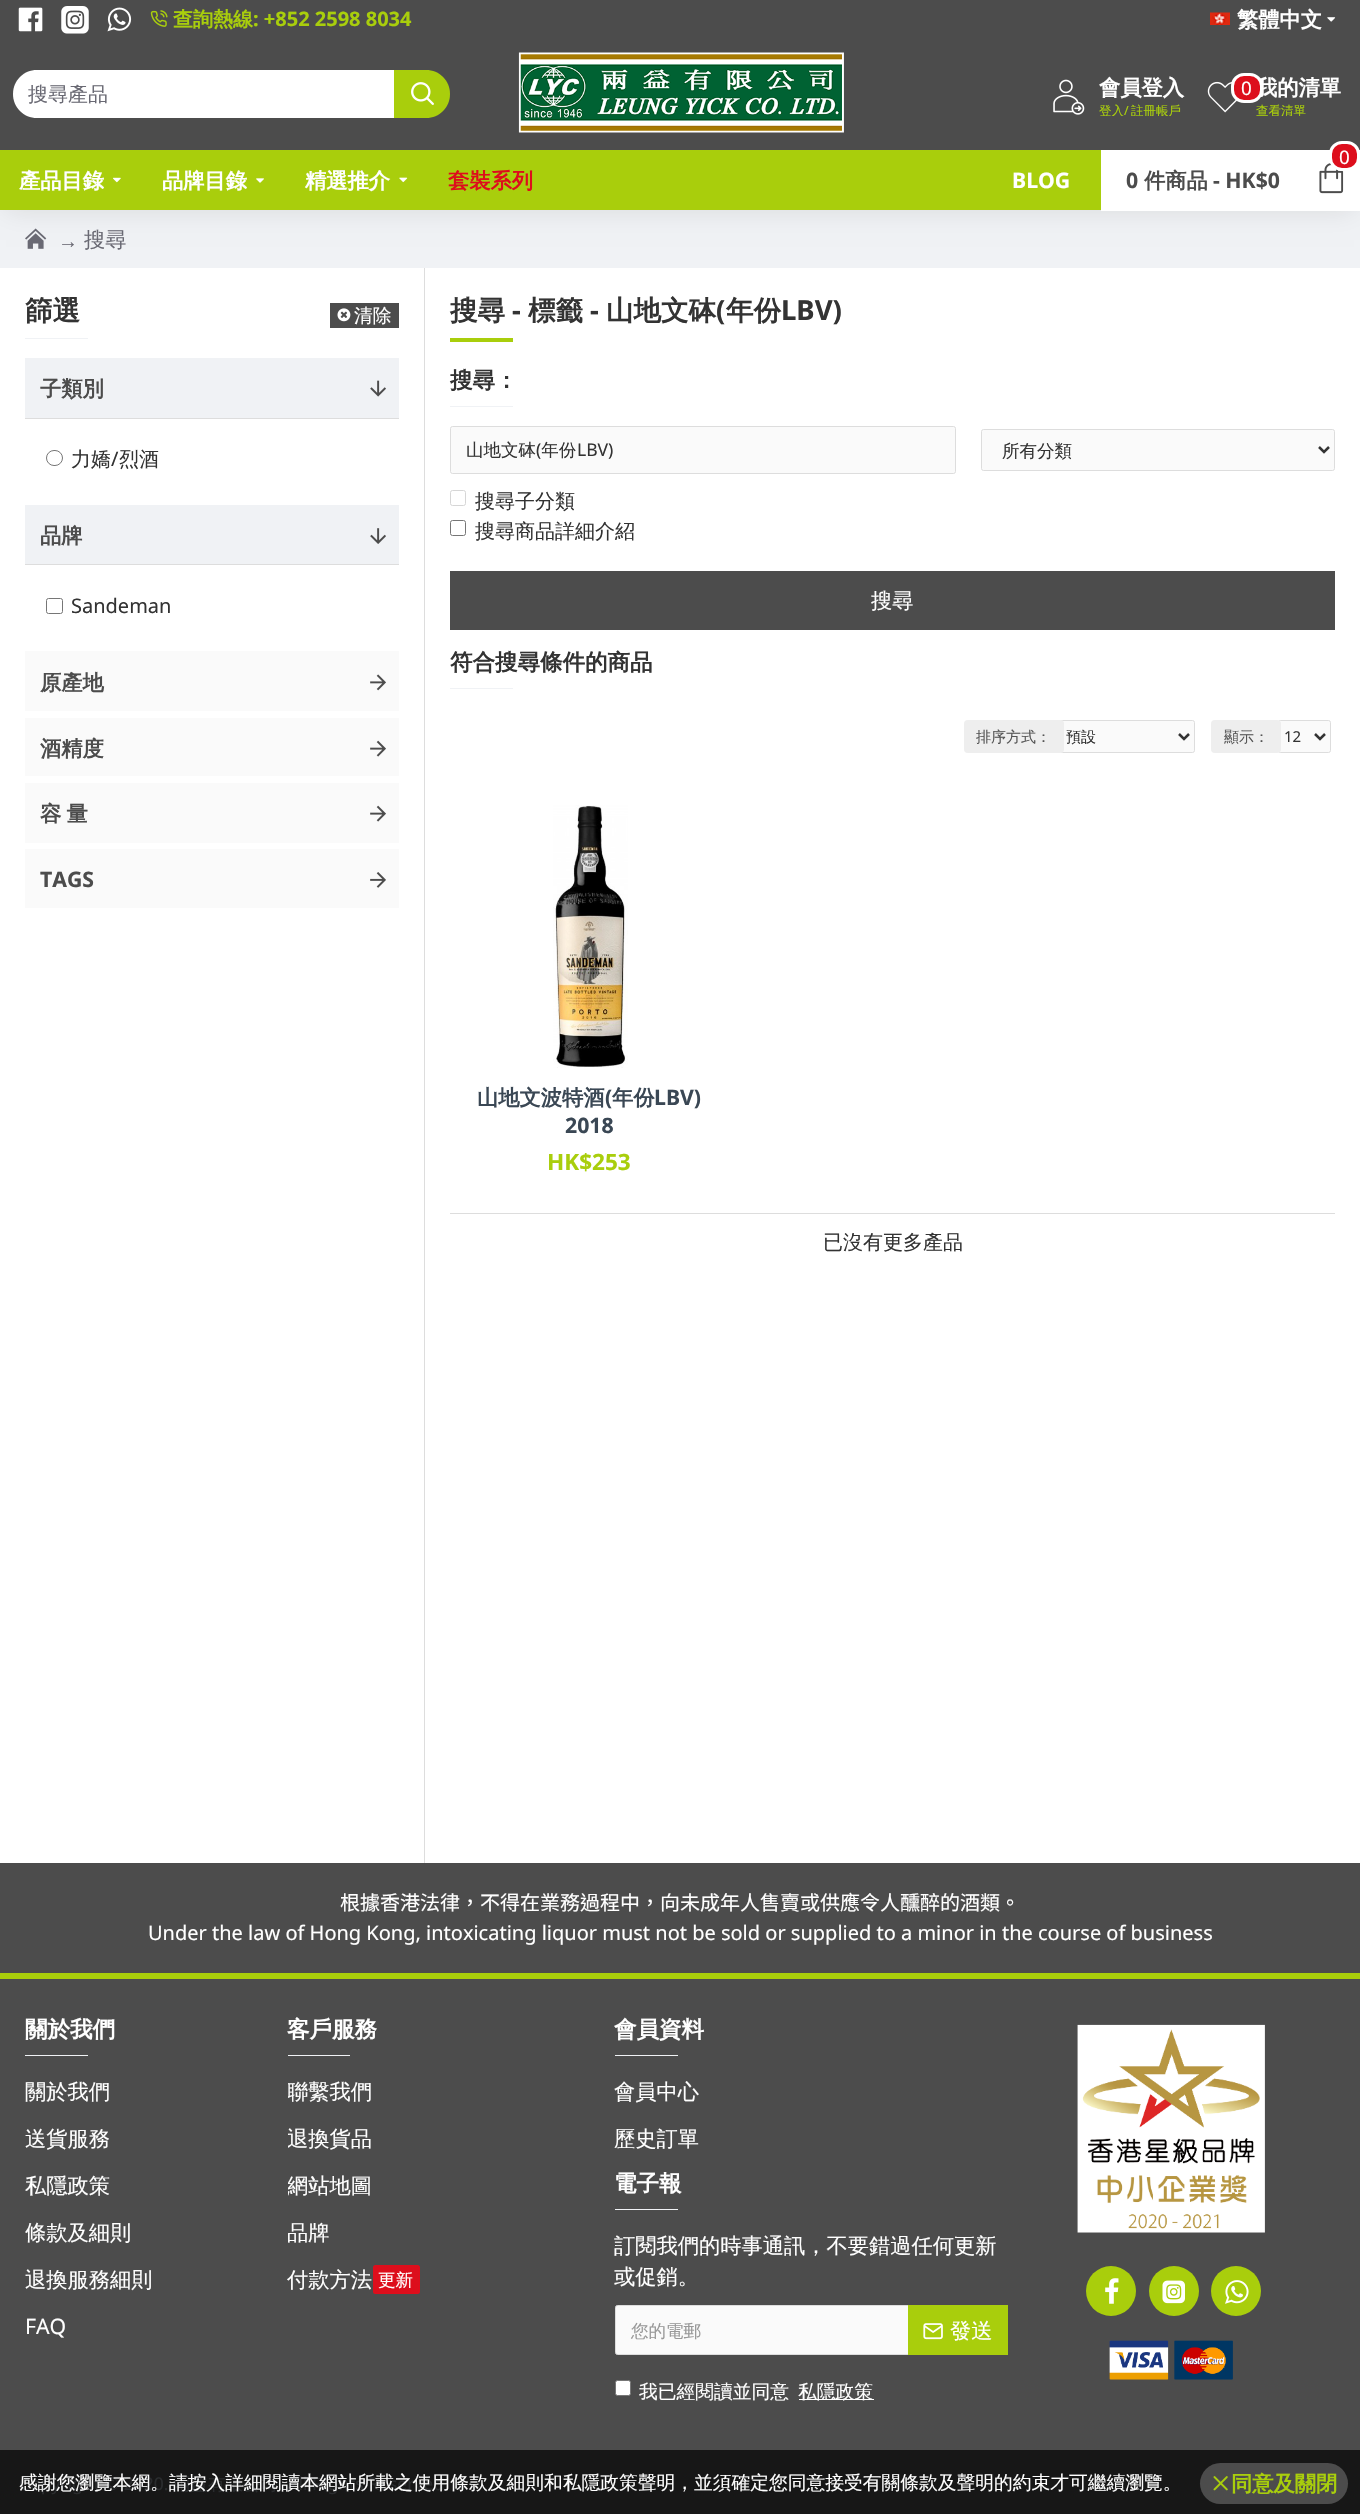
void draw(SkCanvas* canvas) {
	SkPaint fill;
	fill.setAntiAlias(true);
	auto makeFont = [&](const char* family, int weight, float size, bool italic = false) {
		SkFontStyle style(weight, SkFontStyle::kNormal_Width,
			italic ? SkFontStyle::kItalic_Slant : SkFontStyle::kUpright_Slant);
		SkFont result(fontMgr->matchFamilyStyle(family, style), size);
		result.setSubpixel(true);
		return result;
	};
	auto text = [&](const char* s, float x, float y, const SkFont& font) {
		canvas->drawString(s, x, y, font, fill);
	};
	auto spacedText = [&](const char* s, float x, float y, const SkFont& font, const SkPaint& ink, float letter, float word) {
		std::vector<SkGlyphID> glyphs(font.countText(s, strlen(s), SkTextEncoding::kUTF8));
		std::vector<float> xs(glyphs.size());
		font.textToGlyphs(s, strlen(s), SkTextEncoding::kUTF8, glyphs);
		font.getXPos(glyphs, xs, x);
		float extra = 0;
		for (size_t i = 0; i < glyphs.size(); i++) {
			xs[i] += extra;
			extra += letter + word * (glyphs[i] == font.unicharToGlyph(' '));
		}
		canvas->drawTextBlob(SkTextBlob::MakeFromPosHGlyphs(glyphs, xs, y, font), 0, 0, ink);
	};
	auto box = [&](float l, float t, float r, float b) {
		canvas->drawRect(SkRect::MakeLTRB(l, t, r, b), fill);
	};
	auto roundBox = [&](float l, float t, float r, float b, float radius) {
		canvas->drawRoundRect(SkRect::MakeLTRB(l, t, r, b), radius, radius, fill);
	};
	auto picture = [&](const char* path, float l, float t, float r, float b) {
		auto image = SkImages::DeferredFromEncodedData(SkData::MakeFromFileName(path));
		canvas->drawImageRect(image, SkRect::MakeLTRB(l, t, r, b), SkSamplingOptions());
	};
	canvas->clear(0xFFFFFFFF);
	fill.setColor(0xFFF0F2F5);
	box(0, 210, 1360, 268);
	picture("image14.png", 25, 228, 47, 249);
	fill.setColor(0x1A000000);
	fill.setMaskFilter(SkMaskFilter::MakeBlur(kNormal_SkBlurStyle, 12.5f));
	canvas->drawRect(SkRect::MakeLTRB(6, 13, 1354, 210), fill);
	fill.setMaskFilter(nullptr);
	fill.setColor(0xFF4C4C4C);
	box(0, 0, 1360, 150);
	picture("image0.png", 18, 7, 43, 32);
	picture("image1.png", 61, 6, 89, 34);
	picture("image2.png", 107, 7, 132, 32);
	picture("image3.png", 150, 10, 168, 27);
	picture("image4.png", 1210, 12, 1230, 25);
	picture("image5.png", 1327, 17, 1336, 22);
	fill.setColor(0xFFFFFFFF);
	canvas->drawPath(SkPathBuilder().moveTo(37, 70).lineTo(394, 70).lineTo(394, 118).lineTo(37, 118).cubicTo(23.5f, 118, 13, 107.5f, 13, 94).cubicTo(13, 80.5f, 23.5f, 70, 37, 70).close().detach(), fill);
	fill.setColor(0xFFA9CE0C);
	canvas->drawPath(SkPathBuilder().moveTo(394, 70).lineTo(426, 70).cubicTo(439.5f, 70, 450, 80.5f, 450, 94).cubicTo(450, 107.5f, 439.5f, 118, 426, 118).lineTo(394, 118).close().detach(), fill);
	picture("image6.png", 411, 82, 434, 105);
	picture("image7.png", 518, 52, 844, 133);
	picture("image8.png", 1053, 79, 1085, 115);
	picture("image9.png", 1207, 81, 1237, 113);
	box(0, 150, 1101, 210);
	fill.setColor(0xFFFFFFFF);
	box(1101, 150, 1360, 211);
	picture("image10.png", 1319, 163, 1344, 194);
	fill.setColor(0xFFDD0E1C);
	canvas->drawRoundRect(SkRect::MakeLTRB(1330.5f, 142.5f, 1358.5f, 169.5f), 11.5f, 11.5f, fill);
	fill.setStyle(SkPaint::kStroke_Style);
	fill.setStrokeWidth(3);
	fill.setColor(0xFFFFFFFF);
	canvas->drawRoundRect(SkRect::MakeLTRB(1330.5f, 142.5f, 1358.5f, 169.5f), 11.5f, 11.5f, fill);
	picture("image11.png", 113, 177, 121, 183);
	picture("image12.png", 256, 178, 264, 183);
	picture("image13.png", 399, 177, 408, 183);
	fill.setStyle(SkPaint::kFill_Style);
	fill.setColor(0xFFDDDDDD);
	box(424, 268, 425, 1863);
	fill.setColor(0xFF4C4C4C);
	box(330, 303, 399, 328);
	picture("image15.png", 337, 308, 351, 322);
	fill.setColor(0xFFF0F2F5);
	box(25, 338, 88, 339);
	box(25, 358, 399, 418);
	picture("image16.png", 370, 380, 386, 397);
	fill.setColor(0xFFDDDDDD);
	box(25, 418, 399, 419);
	fill.setStyle(SkPaint::kStroke_Style);
	fill.setStrokeWidth(1);
	fill.setColor(0xFF767676);
	canvas->drawRoundRect(SkRect::MakeLTRB(46.5f, 450.5f, 62.5f, 465.5f), 7.5f, 7.5f, fill);
	fill.setStyle(SkPaint::kFill_Style);
	fill.setColor(0xFFF0F2F5);
	box(25, 505, 399, 564);
	picture("image17.png", 370, 528, 386, 544);
	fill.setColor(0xFFDDDDDD);
	box(25, 564, 399, 565);
	fill.setStyle(SkPaint::kStroke_Style);
	fill.setColor(0xFF767676);
	canvas->drawRoundRect(SkRect::MakeLTRB(46.5f, 598.5f, 62.5f, 613.5f), 2, 2, fill);
	fill.setStyle(SkPaint::kFill_Style);
	fill.setColor(0xFFFAFAFA);
	box(25, 651, 399, 711);
	picture("image18.png", 370, 674, 386, 691);
	box(25, 718, 399, 776);
	picture("image19.png", 370, 740, 386, 757);
	box(25, 783, 399, 843);
	picture("image19.png", 370, 805, 386, 822);
	box(25, 849, 399, 908);
	picture("image20.png", 370, 872, 386, 888);
	fill.setColor(0xFFA9CE0C);
	box(450, 338, 513, 342);
	fill.setColor(0xFFF0F2F5);
	box(450, 406, 513, 407);
	fill.setColor(0xFFFAFAFA);
	canvas->drawRoundRect(SkRect::MakeLTRB(450.5f, 426.5f, 955.5f, 473.5f), 2, 2, fill);
	fill.setStyle(SkPaint::kStroke_Style);
	fill.setColor(0xFFDDDDDD);
	canvas->drawRoundRect(SkRect::MakeLTRB(450.5f, 426.5f, 955.5f, 473.5f), 2, 2, fill);
	fill.setStyle(SkPaint::kFill_Style);
	fill.setColor(0xFFFAFAFA);
	canvas->drawRoundRect(SkRect::MakeLTRB(981.5f, 429.5f, 1334.5f, 470.5f), 2, 2, fill);
	fill.setStyle(SkPaint::kStroke_Style);
	fill.setColor(0xFFDDDDDD);
	canvas->drawRoundRect(SkRect::MakeLTRB(981.5f, 429.5f, 1334.5f, 470.5f), 2, 2, fill);
	fill.setStrokeWidth(2.5f);
	fill.setColor(0xFF333333);
	canvas->drawPath(SkPathBuilder().moveTo(1319, 447).lineTo(1324, 452).lineTo(1329, 447).detach(), fill);
	fill.setStrokeWidth(1);
	fill.setColor(0xFFD6D6D6);
	canvas->drawRoundRect(SkRect::MakeLTRB(450.5f, 490.5f, 465.5f, 505.5f), 2, 2, fill);
	fill.setColor(0xFF767676);
	canvas->drawRoundRect(SkRect::MakeLTRB(450.5f, 520.5f, 465.5f, 535.5f), 2, 2, fill);
	fill.setStyle(SkPaint::kFill_Style);
	fill.setColor(0xFF4C4C4C);
	box(450, 571, 1335, 630);
	fill.setColor(0xFFF0F2F5);
	box(450, 688, 513, 689);
	fill.setColor(0xFFFAFAFA);
	canvas->drawRoundRect(SkRect::MakeLTRB(1060.5f, 720.5f, 1194.5f, 752.5f), 2, 2, fill);
	fill.setStyle(SkPaint::kStroke_Style);
	fill.setColor(0xFFDDDDDD);
	canvas->drawRoundRect(SkRect::MakeLTRB(1060.5f, 720.5f, 1194.5f, 752.5f), 2, 2, fill);
	fill.setStyle(SkPaint::kFill_Style);
	fill.setColor(0xFFEEEEEE);
	roundBox(964, 720, 1064, 753, 4);
	fill.setStyle(SkPaint::kStroke_Style);
	fill.setStrokeWidth(2.5f);
	fill.setColor(0xFF333333);
	canvas->drawPath(SkPathBuilder().moveTo(1179, 734).lineTo(1184, 739).lineTo(1189, 734).detach(), fill);
	fill.setStyle(SkPaint::kFill_Style);
	fill.setColor(0xFFFAFAFA);
	canvas->drawRoundRect(SkRect::MakeLTRB(1278.5f, 720.5f, 1330.5f, 752.5f), 2, 2, fill);
	fill.setStyle(SkPaint::kStroke_Style);
	fill.setStrokeWidth(1);
	fill.setColor(0xFFDDDDDD);
	canvas->drawRoundRect(SkRect::MakeLTRB(1278.5f, 720.5f, 1330.5f, 752.5f), 2, 2, fill);
	fill.setStyle(SkPaint::kFill_Style);
	fill.setColor(0xFFEEEEEE);
	roundBox(1211, 720, 1281, 753, 4);
	fill.setStyle(SkPaint::kStroke_Style);
	fill.setStrokeWidth(2.5f);
	fill.setColor(0xFF333333);
	canvas->drawPath(SkPathBuilder().moveTo(1315, 734).lineTo(1320, 739).lineTo(1325, 734).detach(), fill);
	picture("image21.png", 553, 805, 628, 1068);
	fill.setStyle(SkPaint::kFill_Style);
	fill.setColor(0xFFDDDDDD);
	box(450, 1213, 1335, 1214);
	fill.setColor(0xFF4C4C4C);
	box(0, 1863, 1360, 2450);
	fill.setColor(0xFF171717);
	box(0, 2450, 1360, 2514);
	fill.setColor(0xFFA9CE0C);
	box(0, 1973, 1360, 1979);
	fill.setColor(0xFFF0F2F5);
	box(25, 2055, 88, 2056);
	box(288, 2055, 350, 2056);
	fill.setColor(0xFFDD0E1C);
	roundBox(373, 2265, 420, 2294, 2.5f);
	fill.setColor(0xFFF0F2F5);
	box(615, 2055, 678, 2056);
	box(615, 2209, 678, 2210);
	fill.setColor(0xFFFAFAFA);
	canvas->drawRoundRect(SkRect::MakeLTRB(615.5f, 2305.5f, 1007.5f, 2354.5f), 2, 2, fill);
	fill.setStyle(SkPaint::kStroke_Style);
	fill.setStrokeWidth(1);
	fill.setColor(0xFFDDDDDD);
	canvas->drawRoundRect(SkRect::MakeLTRB(615.5f, 2305.5f, 1007.5f, 2354.5f), 2, 2, fill);
	fill.setStyle(SkPaint::kFill_Style);
	fill.setColor(0xFFA9CE0C);
	box(908, 2305, 1008, 2355);
	picture("image22.png", 923, 2323, 943, 2340);
	fill.setColor(0xFFFFFFFF);
	canvas->drawRoundRect(SkRect::MakeLTRB(615.5f, 2380.5f, 630.5f, 2395.5f), 2, 2, fill);
	fill.setStyle(SkPaint::kStroke_Style);
	fill.setColor(0xFF767676);
	canvas->drawRoundRect(SkRect::MakeLTRB(615.5f, 2380.5f, 630.5f, 2395.5f), 2, 2, fill);
	fill.setStyle(SkPaint::kFill_Style);
	fill.setColor(0xFFFFFFFF);
	box(799, 2399, 874, 2400);
	picture("image23.png", 1077, 2024, 1265, 2233);
	fill.setColor(0xFFA9CE0C);
	canvas->drawCircle(1111, 2291, 25, fill);
	picture("image24.png", 1105, 2278, 1119, 2304);
	canvas->drawCircle(1174, 2291, 25, fill);
	picture("image25.png", 1162, 2280, 1185, 2304);
	canvas->drawCircle(1236, 2291, 25, fill);
	picture("image26.png", 1225, 2280, 1249, 2304);
	picture("image27.png", 1109, 2340, 1233, 2380);
	fill.setColor(0xFF4C4C4C);
	roundBox(1200, 2463, 1348, 2504, 20.5f);
	picture("image28.png", 1213, 2476, 1228, 2491);
	auto font1 = makeFont("WenQuanYi Zen Hei", 700, 20);
	fill.setColor(0xFFA9CE0C);
	text("查詢熱線", 173, 26, font1);
	auto font2 = makeFont("Noto Sans", 700, 20);
	text(": +852 2598 8034", 253, 26, font2);
	auto font3 = makeFont("WenQuanYi Zen Hei", 700, 21.25f);
	fill.setColor(0xFFFFFFFF);
	text("繁體中文", 1237, 27, font3);
	auto font4 = makeFont("WenQuanYi Zen Hei", 500, 20);
	fill.setColor(0xFF696973);
	text("搜尋產品", 28, 101, font4);
	fill.setColor(0xFFFFFFFF);
	text("會員登入", 1099, 95, font3);
	canvas->save();
	canvas->clipRect(SkRect::MakeLTRB(1099, 71, 1184, 116));
	auto font5 = makeFont("WenQuanYi Zen Hei", 500, 12.5f);
	fill.setColor(0xFFA9CE0C);
	text("登入", 1099, 115, font5);
	canvas->restore();
	auto font6 = makeFont("Noto Sans", 400, 12.5f);
	text("/", 1124, 115, font6);
	canvas->save();
	canvas->clipRect(SkRect::MakeLTRB(1099, 71, 1184, 116));
	text("註冊帳戶", 1131, 115, font5);
	canvas->restore();
	fill.setColor(0xFFFFFFFF);
	text("我的清單", 1256, 95, font3);
	fill.setColor(0xFFDD0E1C);
	canvas->drawRoundRect(SkRect::MakeLTRB(1232.5f, 74.5f, 1261.5f, 101.5f), 11.5f, 11.5f, fill);
	fill.setStyle(SkPaint::kStroke_Style);
	fill.setStrokeWidth(3);
	fill.setColor(0xFFFFFFFF);
	canvas->drawRoundRect(SkRect::MakeLTRB(1232.5f, 74.5f, 1261.5f, 101.5f), 11.5f, 11.5f, fill);
	auto font7 = makeFont("Noto Sans", 400, 18.75f);
	fill.setStyle(SkPaint::kFill_Style);
	text("0", 1241, 95, font7);
	canvas->save();
	canvas->clipRect(SkRect::MakeLTRB(1256, 71, 1341, 116));
	fill.setColor(0xFFA9CE0C);
	text("查看清單", 1256, 115, font5);
	canvas->restore();
	fill.setColor(0xFFFFFFFF);
	text("0", 1339, 164, font7);
	auto font8 = makeFont("Noto Sans", 700, 21.25f);
	fill.setColor(0xFF4C4C4C);
	text("0", 1126, 188, font8);
	text("件商品", 1144, 188, font3);
	text("- HK$0", 1213, 188, font8);
	fill.setColor(0xFFFFFFFF);
	text("產品目錄", 19, 188, font3);
	text("品牌目錄", 162, 188, font3);
	text("精選推介", 305, 188, font3);
	fill.setColor(0xFFDD0E1C);
	text("套裝系列", 448, 188, font3);
	fill.setColor(0xFFFFFFFF);
	text("BLOG", 1012, 188, font8);
	auto font9 = makeFont("Liberation Serif", 400, 20);
	fill.setColor(0xFF696973);
	text("→", 58, 248, font9);
	auto font10 = makeFont("WenQuanYi Zen Hei", 500, 21.25f);
	text("搜尋", 84, 247, font10);
	auto font11 = makeFont("WenQuanYi Zen Hei", 700, 27.5f);
	fill.setColor(0xFF333333);
	text("篩選", 25, 320, font11);
	auto font12 = makeFont("WenQuanYi Zen Hei", 500, 18.75f);
	fill.setColor(0xFFFFFFFF);
	text("清除", 354, 322, font12);
	fill.setColor(0xFF4C4C4C);
	text("子類別", 40, 396, font3);
	fill.setColor(0xFF333333);
	text("力嬌", 71, 466, font4);
	auto font13 = makeFont("Noto Sans", 400, 20);
	text("/", 111, 466, font13);
	text("烈酒", 119, 466, font4);
	fill.setColor(0xFF4C4C4C);
	text("品牌", 40, 543, font3);
	fill.setColor(0xFF333333);
	text("Sandeman", 71, 613, font13);
	fill.setColor(0xFF4C4C4C);
	text("原產地", 40, 690, font3);
	text("酒精度", 40, 756, font3);
	spacedText("容 量", 40, 821, font3, fill, 0, -1);
	text("TAGS", 40, 887, font8);
	fill.setColor(0xFF333333);
	text("搜尋", 450, 320, font11);
	auto font14 = makeFont("Noto Sans", 700, 27.5f);
	text("-", 512, 320, font14);
	text("標籤", 528, 320, font11);
	text("-", 590, 320, font14);
	text("山地文砵", 606, 320, font11);
	text("(", 716, 320, font14);
	text("年份", 726, 320, font11);
	text("LBV)", 781, 320, font14);
	auto font15 = makeFont("WenQuanYi Zen Hei", 700, 22.5f);
	text("搜尋：", 450, 388, font15);
	auto font16 = makeFont("WenQuanYi Zen Hei", 500, 17.5f);
	text("山地文砵 年份", 466, 456, font16);
	auto font17 = makeFont("Noto Sans", 400, 17.5f);
	text("(", 536, 456, font17);
	text("LBV)", 577, 456, font17);
	text("所有分類", 1002, 457, font16);
	text("搜尋子分類", 475, 508, font4);
	text("搜尋商品詳細介紹", 475, 538, font4);
	fill.setColor(0xFFFFFFFF);
	text("搜尋", 871, 608, font10);
	fill.setColor(0xFF333333);
	text("符合搜尋條件的商品", 450, 670, font15);
	auto font18 = makeFont("WenQuanYi Zen Hei", 500, 15);
	fill.setColor(0xFF555555);
	text("排序方式：", 976, 742, font18);
	fill.setColor(0xFF333333);
	text("預設", 1066, 742, font18);
	fill.setColor(0xFF555555);
	text("顯示：", 1224, 742, font18);
	auto font19 = makeFont("Noto Sans", 400, 15);
	fill.setColor(0xFF333333);
	text("12", 1284, 742, font19);
	fill.setColor(0xFF3A4754);
	text("山地文波特酒", 477, 1105, font3);
	text("(", 605, 1105, font8);
	text("年份", 612, 1105, font3);
	text("LBV)", 654, 1105, font8);
	text("2018", 565, 1133, font8);
	auto font20 = makeFont("Noto Sans", 700, 22.5f);
	fill.setColor(0xFFA9CE0C);
	text("HK$253", 547, 1170, font20);
	fill.setColor(0xFF333333);
	text("已沒有更多產品", 823, 1249, font4);
	auto font21 = makeFont("Noto Sans CJK TC", 400, 20);
	fill.setColor(0xFFFFFFFF);
	text("根據香港法律，不得在業務過程中，向未成年人售賣或供應令人醺醉的酒類。", 340, 1910, font21);
	text("Under the law of Hong Kong, intoxicating liquor must not be sold or supplied to a minor in the course of business", 148, 1940, font13);
	text("關於我們", 25, 2037, font15);
	text("關於我們", 25, 2099, font10);
	text("送貨服務", 25, 2146, font10);
	text("私隱政策", 25, 2193, font10);
	text("條款及細則", 25, 2240, font10);
	text("退換服務細則", 25, 2287, font10);
	auto font22 = makeFont("Noto Sans", 400, 21.25f);
	text("FAQ", 25, 2334, font22);
	text("客戶服務", 287, 2037, font15);
	canvas->save();
	canvas->clipRect(SkRect::MakeLTRB(288, 2075, 615, 2310));
	text("聯繫我們", 287, 2099, font10);
	text("退換貨品", 287, 2146, font10);
	text("網站地圖", 287, 2193, font10);
	canvas->restore();
	text("品牌", 287, 2240, font10);
	text("付款方法", 287, 2287, font10);
	text("更新", 378, 2286, font16);
	text("會員資料", 614, 2037, font15);
	text("會員中心", 614, 2099, font10);
	text("歷史訂單", 614, 2146, font10);
	text("電子報", 614, 2191, font15);
	text("訂閱我們的時事通訊，不要錯過任何更新", 614, 2253, font10);
	text("或促銷。", 614, 2284, font10);
	fill.setColor(0xFF999999);
	text("您的電郵", 631, 2337, font16);
	fill.setColor(0xFFFFFFFF);
	text("發送", 950, 2338, font10);
	text("我已經閱讀並同意", 639, 2398, font12);
	text("私隱政策", 798, 2398, font12);
	fill.setColor(0xFF2A2C2E);
	text("Copyright © 2020.", 19, 2490, font17);
	text("兩益有限公司", 173, 2490, font16);
	text(". All Rights Reserved", 278, 2490, font17);
	fill.setColor(0xFFFFFFFF);
	text("感謝您瀏覽本網。請按入詳細閱讀本網站所載之使用條款及細則和私隱政策聲明，並須確定您同意接受有關條款及聲明的約束才可繼續瀏覽。", 19, 2489, font12);
	fill.setColor(0xFFA9CE0C);
	text("同意及關閉", 1231, 2491, font3);
}
